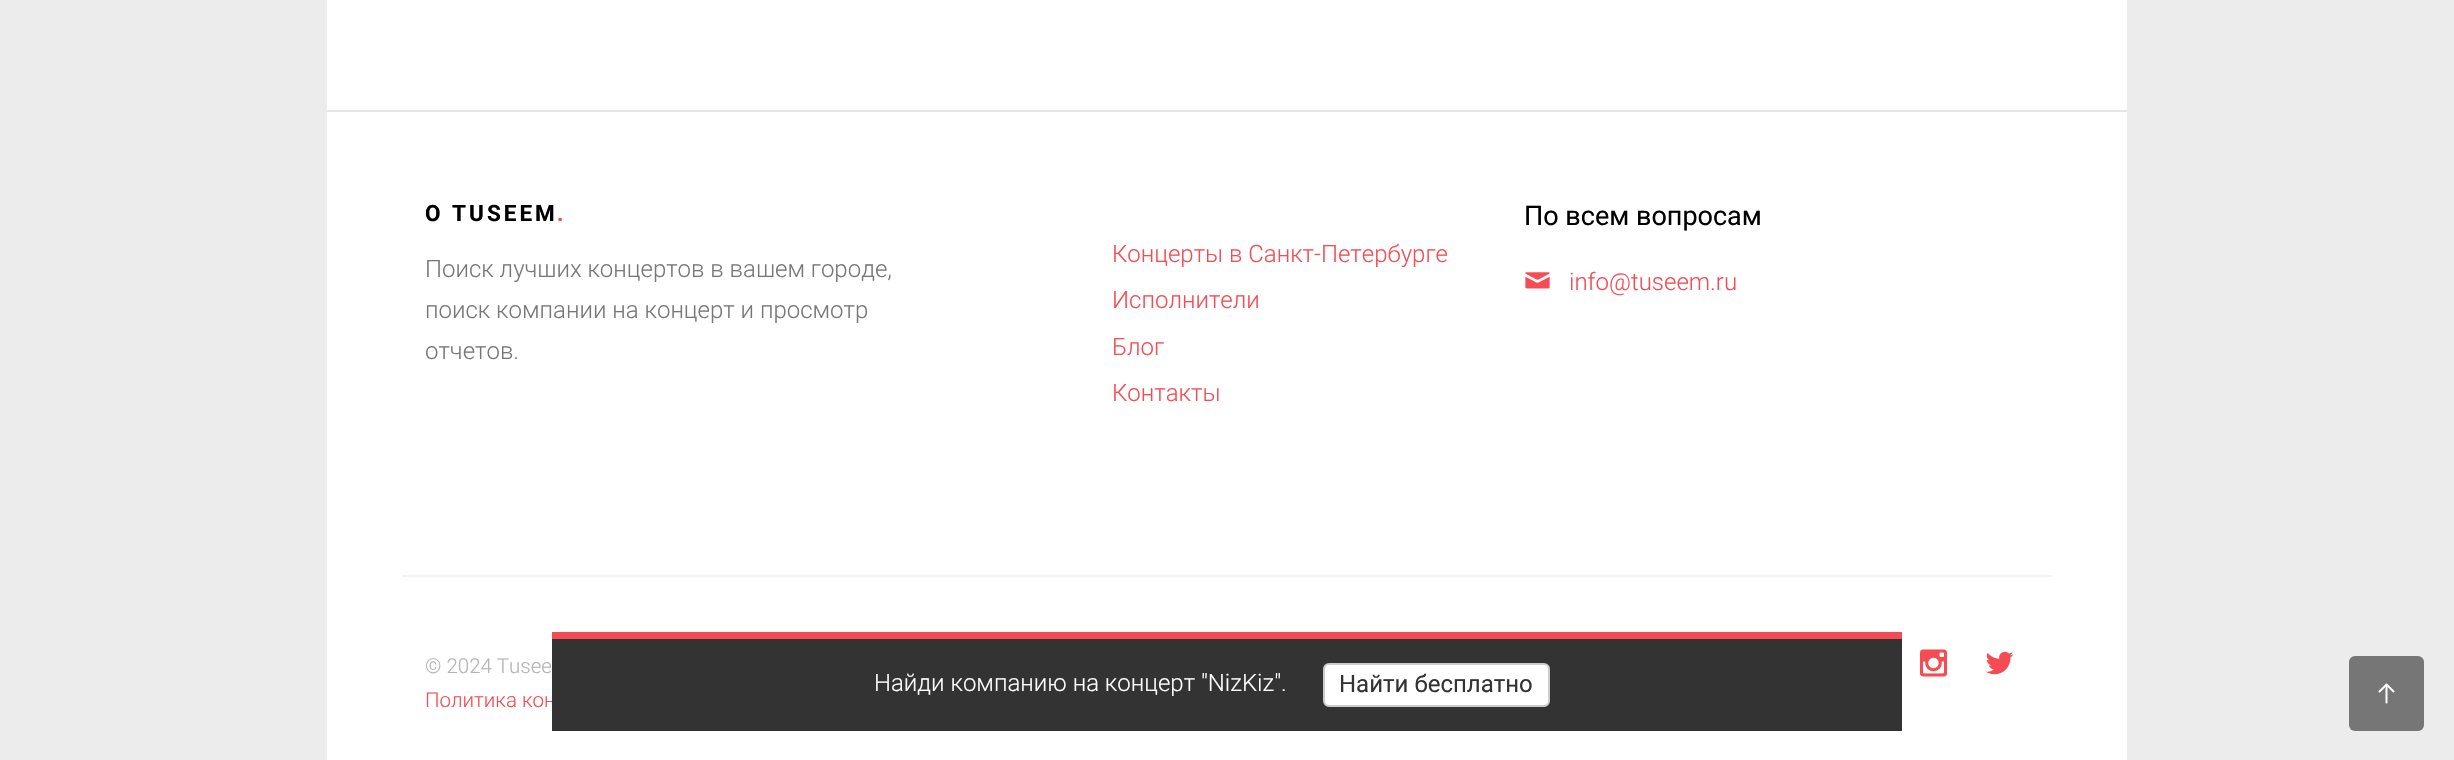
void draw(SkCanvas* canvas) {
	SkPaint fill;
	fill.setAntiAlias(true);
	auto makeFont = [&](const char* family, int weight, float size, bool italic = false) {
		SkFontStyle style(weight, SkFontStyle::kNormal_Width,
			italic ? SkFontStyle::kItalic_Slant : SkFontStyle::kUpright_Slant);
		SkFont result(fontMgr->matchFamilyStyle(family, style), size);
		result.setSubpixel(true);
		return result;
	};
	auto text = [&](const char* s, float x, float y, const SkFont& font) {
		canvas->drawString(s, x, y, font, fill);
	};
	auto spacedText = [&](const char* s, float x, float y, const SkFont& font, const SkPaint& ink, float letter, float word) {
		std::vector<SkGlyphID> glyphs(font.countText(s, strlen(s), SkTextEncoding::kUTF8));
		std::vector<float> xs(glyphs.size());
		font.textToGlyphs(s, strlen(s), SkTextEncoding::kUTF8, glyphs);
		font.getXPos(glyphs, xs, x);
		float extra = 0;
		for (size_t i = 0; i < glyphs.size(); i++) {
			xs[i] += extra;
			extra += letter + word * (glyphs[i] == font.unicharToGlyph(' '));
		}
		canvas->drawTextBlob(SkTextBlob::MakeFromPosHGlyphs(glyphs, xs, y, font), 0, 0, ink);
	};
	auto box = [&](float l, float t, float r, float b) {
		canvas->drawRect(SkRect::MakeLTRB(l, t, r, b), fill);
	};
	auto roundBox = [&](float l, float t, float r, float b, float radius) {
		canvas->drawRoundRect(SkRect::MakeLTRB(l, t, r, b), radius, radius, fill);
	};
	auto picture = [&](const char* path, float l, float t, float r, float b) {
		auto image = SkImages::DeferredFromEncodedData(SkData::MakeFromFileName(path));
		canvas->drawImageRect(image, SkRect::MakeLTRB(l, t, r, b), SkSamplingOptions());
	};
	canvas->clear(0xFFECECEC);
	fill.setColor(0xFFFFFFFF);
	box(327, 0, 2127, 760);
	fill.setColor(0xFFE6E6E6);
	box(327, 110, 2127, 112);
	picture("image0.png", 1525, 272, 1550, 289);
	fill.setColor(0xFFF2F2F2);
	box(402, 575, 2052, 577);
	picture("image1.png", 1920, 649, 1947, 677);
	picture("image2.png", 1985, 651, 2014, 675);
	fill.setColor(0xFFF54C53);
	box(552, 632, 1902, 639);
	fill.setColor(0xFF767676);
	roundBox(2349, 656, 2424, 731, 6);
	picture("image3.png", 2378, 683, 2395, 704);
	auto font1 = makeFont("Roboto", 700, 22.5f);
	fill.setColor(0xFF000000);
	spacedText("О TUSEEM", 425, 221, font1, fill, 3, 0);
	fill.setColor(0xFFF54C53);
	spacedText(".", 557, 221, font1, fill, 3, 0);
	auto font2 = makeFont("Roboto", 300, 24);
	fill.setColor(0xFF777777);
	text("Поиск лучших концертов в вашем городе,", 425, 277, font2);
	text("поиск компании на концерт и просмотр", 425, 318, font2);
	text("отчетов.", 425, 359, font2);
	fill.setColor(0xFFF54C53);
	text("Концерты в Санкт-Петербурге", 1112, 262, font2);
	text("Исполнители", 1112, 308, font2);
	text("Блог", 1112, 355, font2);
	text("Контакты", 1112, 401, font2);
	auto font3 = makeFont("Roboto", 400, 27);
	fill.setColor(0xFF000000);
	text("По всем вопросам", 1524, 225, font3);
	fill.setColor(0xFFF54C53);
	text("info@tuseem.ru", 1569, 290, font2);
	auto font4 = makeFont("Roboto", 300, 20.5f);
	fill.setColor(0xFFB3B3B3);
	text("© 2024 Tusee", 425, 673, font4);
	fill.setColor(0xFFF54C53);
	text("Политика кон", 425, 707, font4);
	fill.setColor(0xFF333333);
	box(552, 639, 1902, 731);
	fill.setColor(0xFFFFFFFF);
	text("Найди компанию на концерт \"NizKiz\".", 874, 691, font2);
	canvas->drawRoundRect(SkRect::MakeLTRB(1324, 664, 1549, 706), 5, 5, fill);
	fill.setStyle(SkPaint::kStroke_Style);
	fill.setStrokeWidth(2);
	fill.setColor(0xFFCCCCCC);
	canvas->drawRoundRect(SkRect::MakeLTRB(1324, 664, 1549, 706), 5, 5, fill);
	auto font5 = makeFont("Roboto", 400, 24);
	fill.setStyle(SkPaint::kFill_Style);
	fill.setColor(0xFF333333);
	text("Найти бесплатно", 1339, 692, font5);
}
